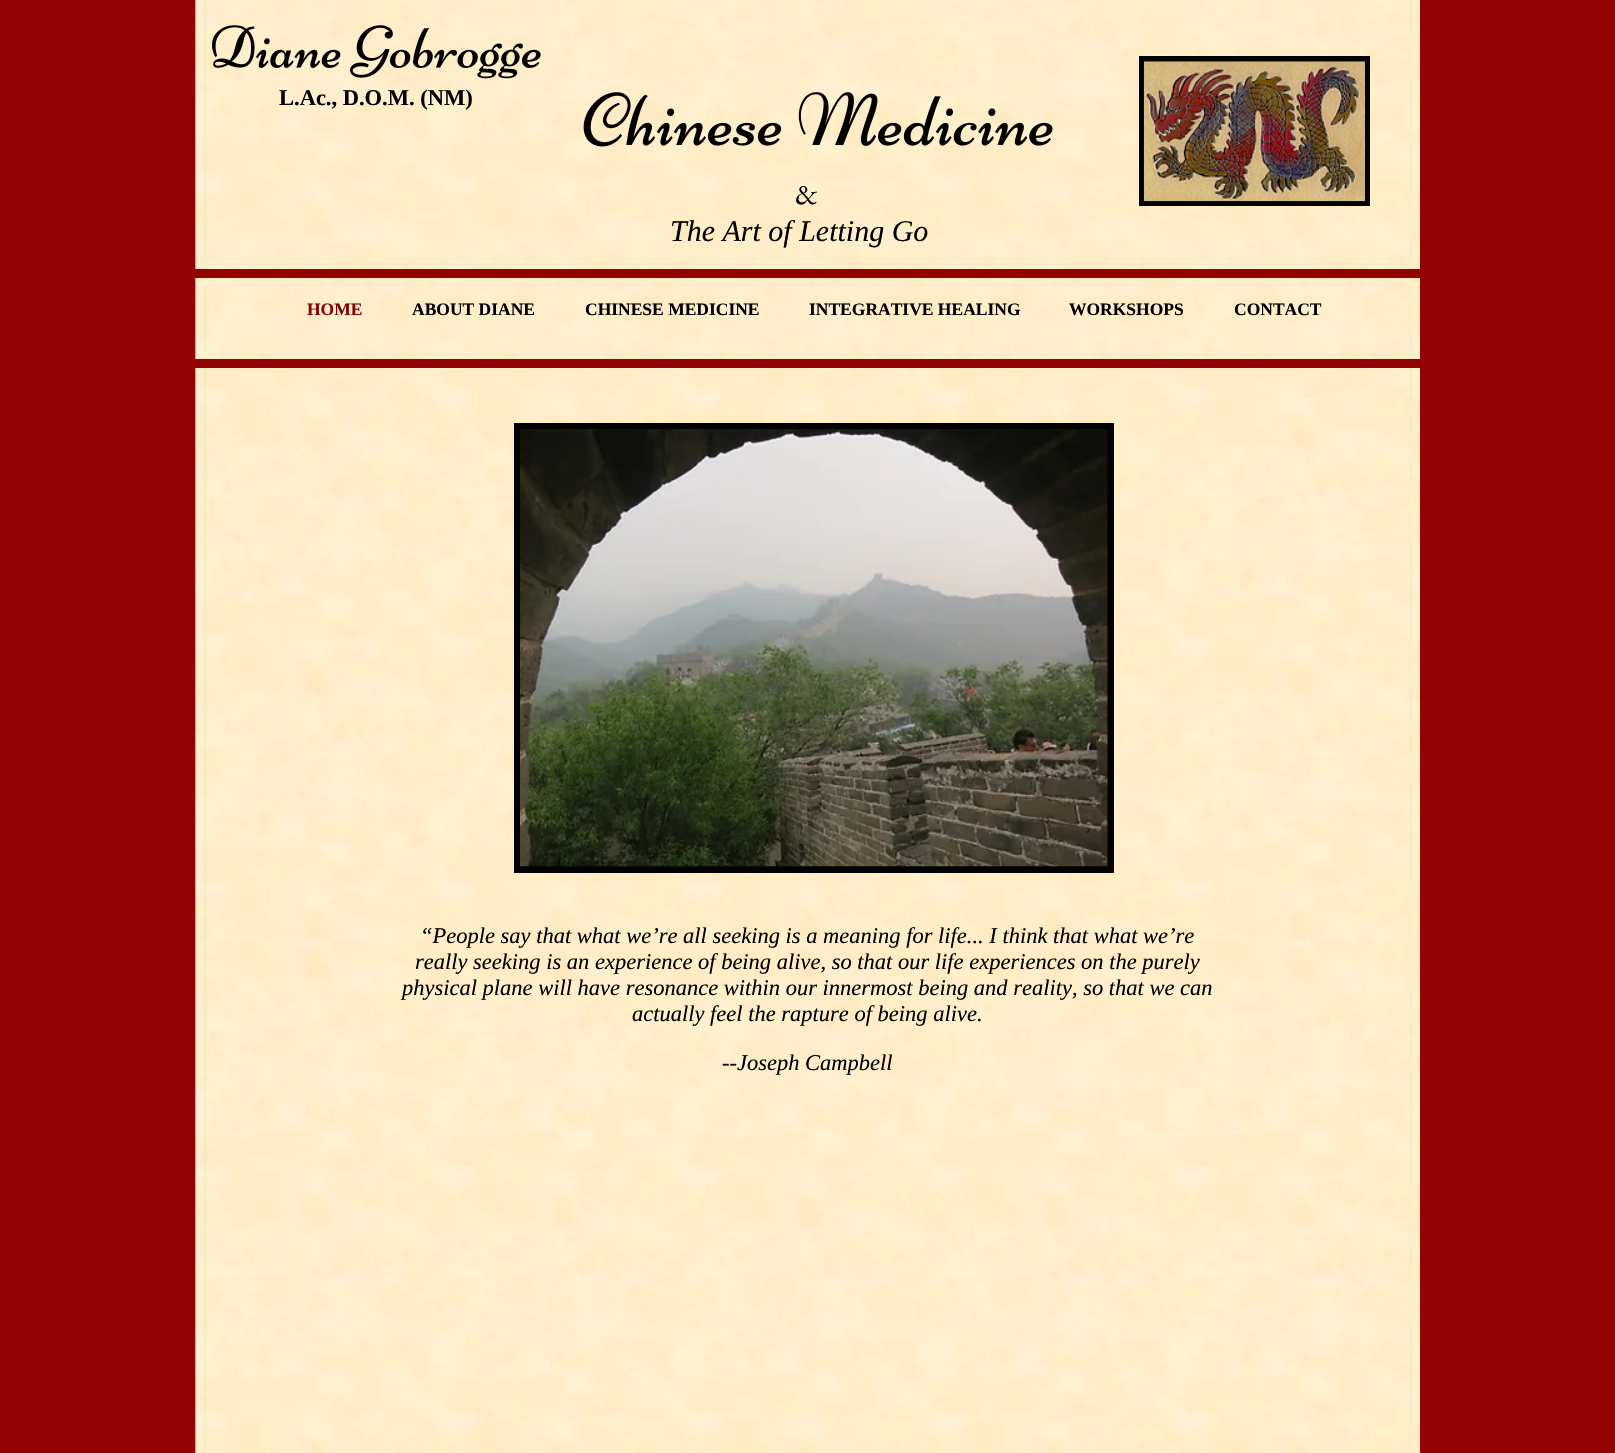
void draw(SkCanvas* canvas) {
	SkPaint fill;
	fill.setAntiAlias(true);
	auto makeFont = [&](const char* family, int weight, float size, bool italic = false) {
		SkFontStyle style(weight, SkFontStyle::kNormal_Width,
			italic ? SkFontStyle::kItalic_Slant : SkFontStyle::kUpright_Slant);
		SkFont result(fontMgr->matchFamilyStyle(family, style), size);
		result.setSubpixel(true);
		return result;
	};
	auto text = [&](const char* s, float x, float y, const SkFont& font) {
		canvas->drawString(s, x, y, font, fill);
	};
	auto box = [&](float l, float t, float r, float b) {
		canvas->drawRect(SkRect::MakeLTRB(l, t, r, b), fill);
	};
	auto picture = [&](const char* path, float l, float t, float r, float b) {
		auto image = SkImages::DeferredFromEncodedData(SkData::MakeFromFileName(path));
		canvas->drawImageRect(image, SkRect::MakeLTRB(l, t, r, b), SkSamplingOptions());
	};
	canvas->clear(0xFF930303);
	picture("image0.png", 195, 0, 1420, 359);
	picture("image1.png", 212, 25, 541, 79);
	picture("image2.png", 583, 92, 1053, 147);
	fill.setColor(0xFF000000);
	box(1139, 56, 1370, 206);
	picture("image3.png", 1143, 61, 1365, 202);
	fill.setColor(0xFF930303);
	box(195, 269, 1420, 278);
	picture("image4.png", 195, 368, 1420, 941);
	picture("image5.png", 195, 941, 1420, 1453);
	fill.setColor(0xFF000000);
	box(520, 429, 1108, 867);
	picture("image6.png", 520, 429, 1108, 867);
	fill.setStyle(SkPaint::kStroke_Style);
	fill.setStrokeWidth(6);
	canvas->drawRect(SkRect::MakeLTRB(517, 426, 1111, 870), fill);
	auto font1 = makeFont("Liberation Serif", 700, 22.5f);
	fill.setStyle(SkPaint::kFill_Style);
	text("L.Ac., D.O.M. (NM)", 279, 105, font1);
	auto font2 = makeFont("EB Garamond", 400, 30);
	text("&", 795, 204, font2);
	auto font3 = makeFont("Liberation Serif", 400, 30, true);
	text("The Art of Letting Go", 670, 241, font3);
	auto font4 = makeFont("Liberation Serif", 700, 17.5f);
	fill.setColor(0xFF800404);
	text("HOME", 307, 315, font4);
	fill.setColor(0xFF000000);
	text("ABOUT DIANE", 412, 315, font4);
	text("CHINESE MEDICINE", 585, 315, font4);
	text("INTEGRATIVE HEALING", 809, 315, font4);
	text("WORKSHOPS", 1069, 315, font4);
	text("CONTACT", 1234, 315, font4);
	auto font5 = makeFont("Liberation Serif", 400, 22.5f, true);
	text("“People say that what we’re all seeking is a meaning for life... I think that what we’re", 420, 943, font5);
	text("really seeking is an experience of being alive, so that our life experiences on the purely", 415, 969, font5);
	text("physical plane will have resonance within our innermost being and reality, so that we can", 402, 995, font5);
	text("actually feel the rapture of being alive.", 632, 1021, font5);
	text("--Joseph Campbell", 722, 1070, font5);
}
